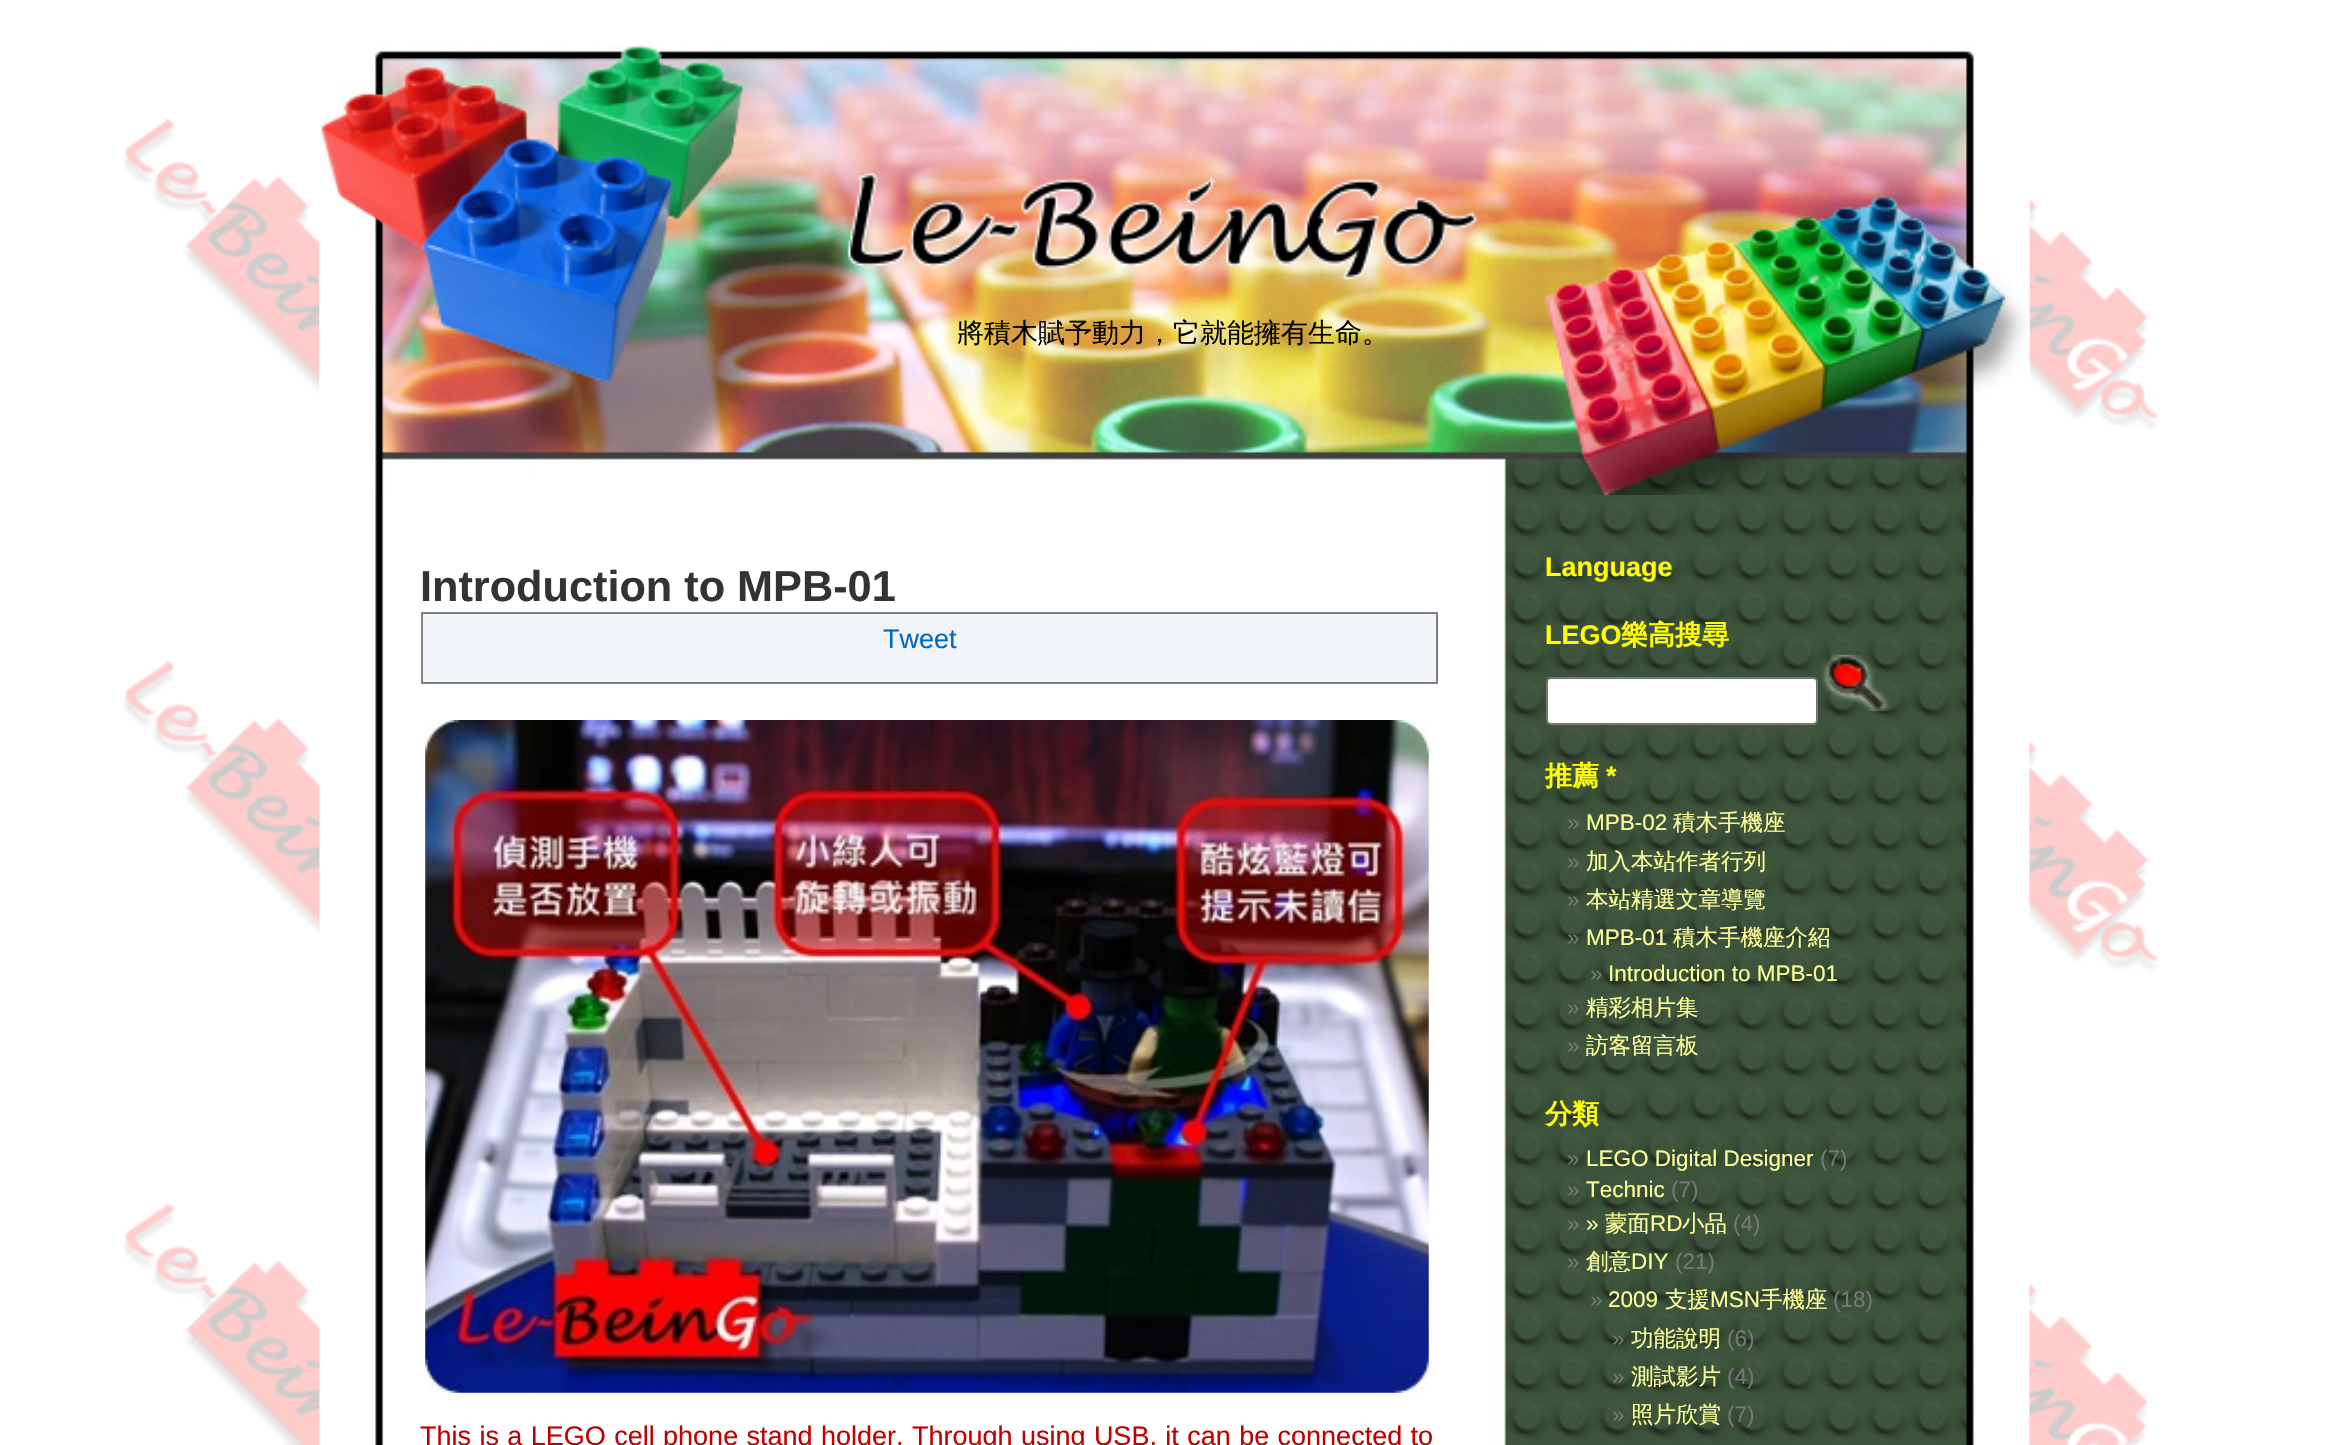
void draw(SkCanvas* canvas) {
	SkPaint fill;
	fill.setAntiAlias(true);
	auto makeFont = [&](const char* family, int weight, float size, bool italic = false) {
		SkFontStyle style(weight, SkFontStyle::kNormal_Width,
			italic ? SkFontStyle::kItalic_Slant : SkFontStyle::kUpright_Slant);
		SkFont result(fontMgr->matchFamilyStyle(family, style), size);
		result.setSubpixel(true);
		return result;
	};
	auto text = [&](const char* s, float x, float y, const SkFont& font) {
		canvas->drawString(s, x, y, font, fill);
	};
	auto spacedText = [&](const char* s, float x, float y, const SkFont& font, const SkPaint& ink, float letter, float word) {
		std::vector<SkGlyphID> glyphs(font.countText(s, strlen(s), SkTextEncoding::kUTF8));
		std::vector<float> xs(glyphs.size());
		font.textToGlyphs(s, strlen(s), SkTextEncoding::kUTF8, glyphs);
		font.getXPos(glyphs, xs, x);
		float extra = 0;
		for (size_t i = 0; i < glyphs.size(); i++) {
			xs[i] += extra;
			extra += letter + word * (glyphs[i] == font.unicharToGlyph(' '));
		}
		canvas->drawTextBlob(SkTextBlob::MakeFromPosHGlyphs(glyphs, xs, y, font), 0, 0, ink);
	};
	auto picture = [&](const char* path, float l, float t, float r, float b) {
		auto image = SkImages::DeferredFromEncodedData(SkData::MakeFromFileName(path));
		canvas->drawImageRect(image, SkRect::MakeLTRB(l, t, r, b), SkSamplingOptions());
	};
	canvas->clear(0xFFFFFFFF);
	picture("image0.png", 123, 118, 2159, 1445);
	picture("image1.png", 319, 45, 2030, 1445);
	picture("image2.png", 319, 45, 2030, 495);
	picture("image3.png", 843, 172, 1500, 307);
	fill.setColor(0xFFF0F4F9);
	canvas->drawRect(SkRect::MakeLTRB(422, 613, 1437, 683), fill);
	fill.setStyle(SkPaint::kStroke_Style);
	fill.setStrokeWidth(2);
	fill.setColor(0xFF808080);
	canvas->drawRect(SkRect::MakeLTRB(422, 613, 1437, 683), fill);
	picture("image4.png", 425, 720, 1429, 1393);
	fill.setStyle(SkPaint::kFill_Style);
	fill.setColor(0xFFFFFFFF);
	canvas->drawRoundRect(SkRect::MakeLTRB(1547, 678, 1817, 724), 4, 4, fill);
	fill.setStyle(SkPaint::kStroke_Style);
	fill.setColor(0xFF767676);
	canvas->drawRoundRect(SkRect::MakeLTRB(1547, 678, 1817, 724), 4, 4, fill);
	picture("image5.png", 1822, 654, 1890, 711);
	auto font1 = makeFont("WenQuanYi Zen Hei", 500, 27);
	fill.setStyle(SkPaint::kFill_Style);
	fill.setColor(0xFF000000);
	text("將積木賦予動力，它就能擁有生命。", 957, 342, font1);
	auto font2 = makeFont("Liberation Sans", 700, 43.25f);
	fill.setColor(0xFF333333);
	text("Introduction to MPB-01", 420, 601, font2);
	auto font3 = makeFont("Liberation Sans", 400, 27);
	fill.setColor(0xFF0066CC);
	text("Tweet", 883, 648, font3);
	fill.setColor(0xFFC00000);
	spacedText("This is a LEGO cell phone stand holder. Through using USB, it can be connected to", 420, 1445, font3, fill, 0, 0.9f);
	auto font4 = makeFont("Liberation Sans", 700, 27);
	fill.setColor(0xFFFFFF00);
	text("Language", 1545, 576, font4);
	text("LEGO", 1545, 644, font4);
	auto font5 = makeFont("WenQuanYi Zen Hei", 700, 27);
	text("樂高搜尋", 1621, 644, font5);
	text("推薦", 1545, 785, font5);
	text("*", 1606, 785, font4);
	auto font6 = makeFont("Liberation Sans", 400, 22.5f);
	fill.setColor(0xFF777777);
	text("»", 1567, 830, font6);
	fill.setColor(0xFFFFFF99);
	text("MPB-02", 1586, 830, font6);
	auto font7 = makeFont("WenQuanYi Zen Hei", 500, 22.5f);
	text("積木手機座", 1673, 830, font7);
	fill.setColor(0xFF777777);
	text("»", 1567, 869, font6);
	fill.setColor(0xFFFFFF99);
	text("加入本站作者行列", 1586, 869, font7);
	fill.setColor(0xFF777777);
	text("»", 1567, 907, font6);
	fill.setColor(0xFFFFFF99);
	text("本站精選文章導覽", 1586, 907, font7);
	fill.setColor(0xFF777777);
	text("»", 1567, 945, font6);
	fill.setColor(0xFFFFFF99);
	text("MPB-01", 1586, 945, font6);
	text("積木手機座介紹", 1673, 945, font7);
	fill.setColor(0xFF777777);
	text("»", 1590, 981, font6);
	fill.setColor(0xFFFFFF99);
	text("Introduction to MPB-01", 1608, 981, font6);
	fill.setColor(0xFF777777);
	text("»", 1567, 1015, font6);
	fill.setColor(0xFFFFFF99);
	text("精彩相片集", 1586, 1015, font7);
	fill.setColor(0xFF777777);
	text("»", 1567, 1053, font6);
	fill.setColor(0xFFFFFF99);
	text("訪客留言板", 1586, 1053, font7);
	fill.setColor(0xFFFFFF00);
	text("分類", 1545, 1123, font5);
	fill.setColor(0xFF777777);
	text("»", 1567, 1166, font6);
	fill.setColor(0xFFFFFF99);
	text("LEGO Digital Designer", 1586, 1166, font6);
	fill.setColor(0xFF777777);
	text("(7)", 1820, 1166, font6);
	text("»", 1567, 1197, font6);
	fill.setColor(0xFFFFFF99);
	text("Technic", 1586, 1197, font6);
	fill.setColor(0xFF777777);
	text("(7)", 1671, 1197, font6);
	text("»", 1567, 1231, font6);
	fill.setColor(0xFFFFFF99);
	text("»", 1586, 1231, font6);
	text("蒙面", 1605, 1231, font7);
	text("RD", 1650, 1231, font6);
	text("小品", 1682, 1231, font7);
	fill.setColor(0xFF777777);
	text("(4)", 1733, 1231, font6);
	text("»", 1567, 1269, font6);
	fill.setColor(0xFFFFFF99);
	text("創意", 1586, 1269, font7);
	text("DIY", 1631, 1269, font6);
	fill.setColor(0xFF777777);
	text("(21)", 1675, 1269, font6);
	text("»", 1590, 1307, font6);
	fill.setColor(0xFFFFFF99);
	text("2009", 1608, 1307, font6);
	text("支援", 1665, 1307, font7);
	text("MSN", 1710, 1307, font6);
	text("手機座", 1760, 1307, font7);
	fill.setColor(0xFF777777);
	text("(18)", 1833, 1307, font6);
	text("»", 1612, 1346, font6);
	fill.setColor(0xFFFFFF99);
	text("功能說明", 1631, 1346, font7);
	fill.setColor(0xFF777777);
	text("(6)", 1727, 1346, font6);
	text("»", 1612, 1384, font6);
	fill.setColor(0xFFFFFF99);
	text("測試影片", 1631, 1384, font7);
	fill.setColor(0xFF777777);
	text("(4)", 1727, 1384, font6);
	text("»", 1612, 1422, font6);
	fill.setColor(0xFFFFFF99);
	text("照片欣賞", 1631, 1422, font7);
	fill.setColor(0xFF777777);
	text("(7)", 1727, 1422, font6);
}
